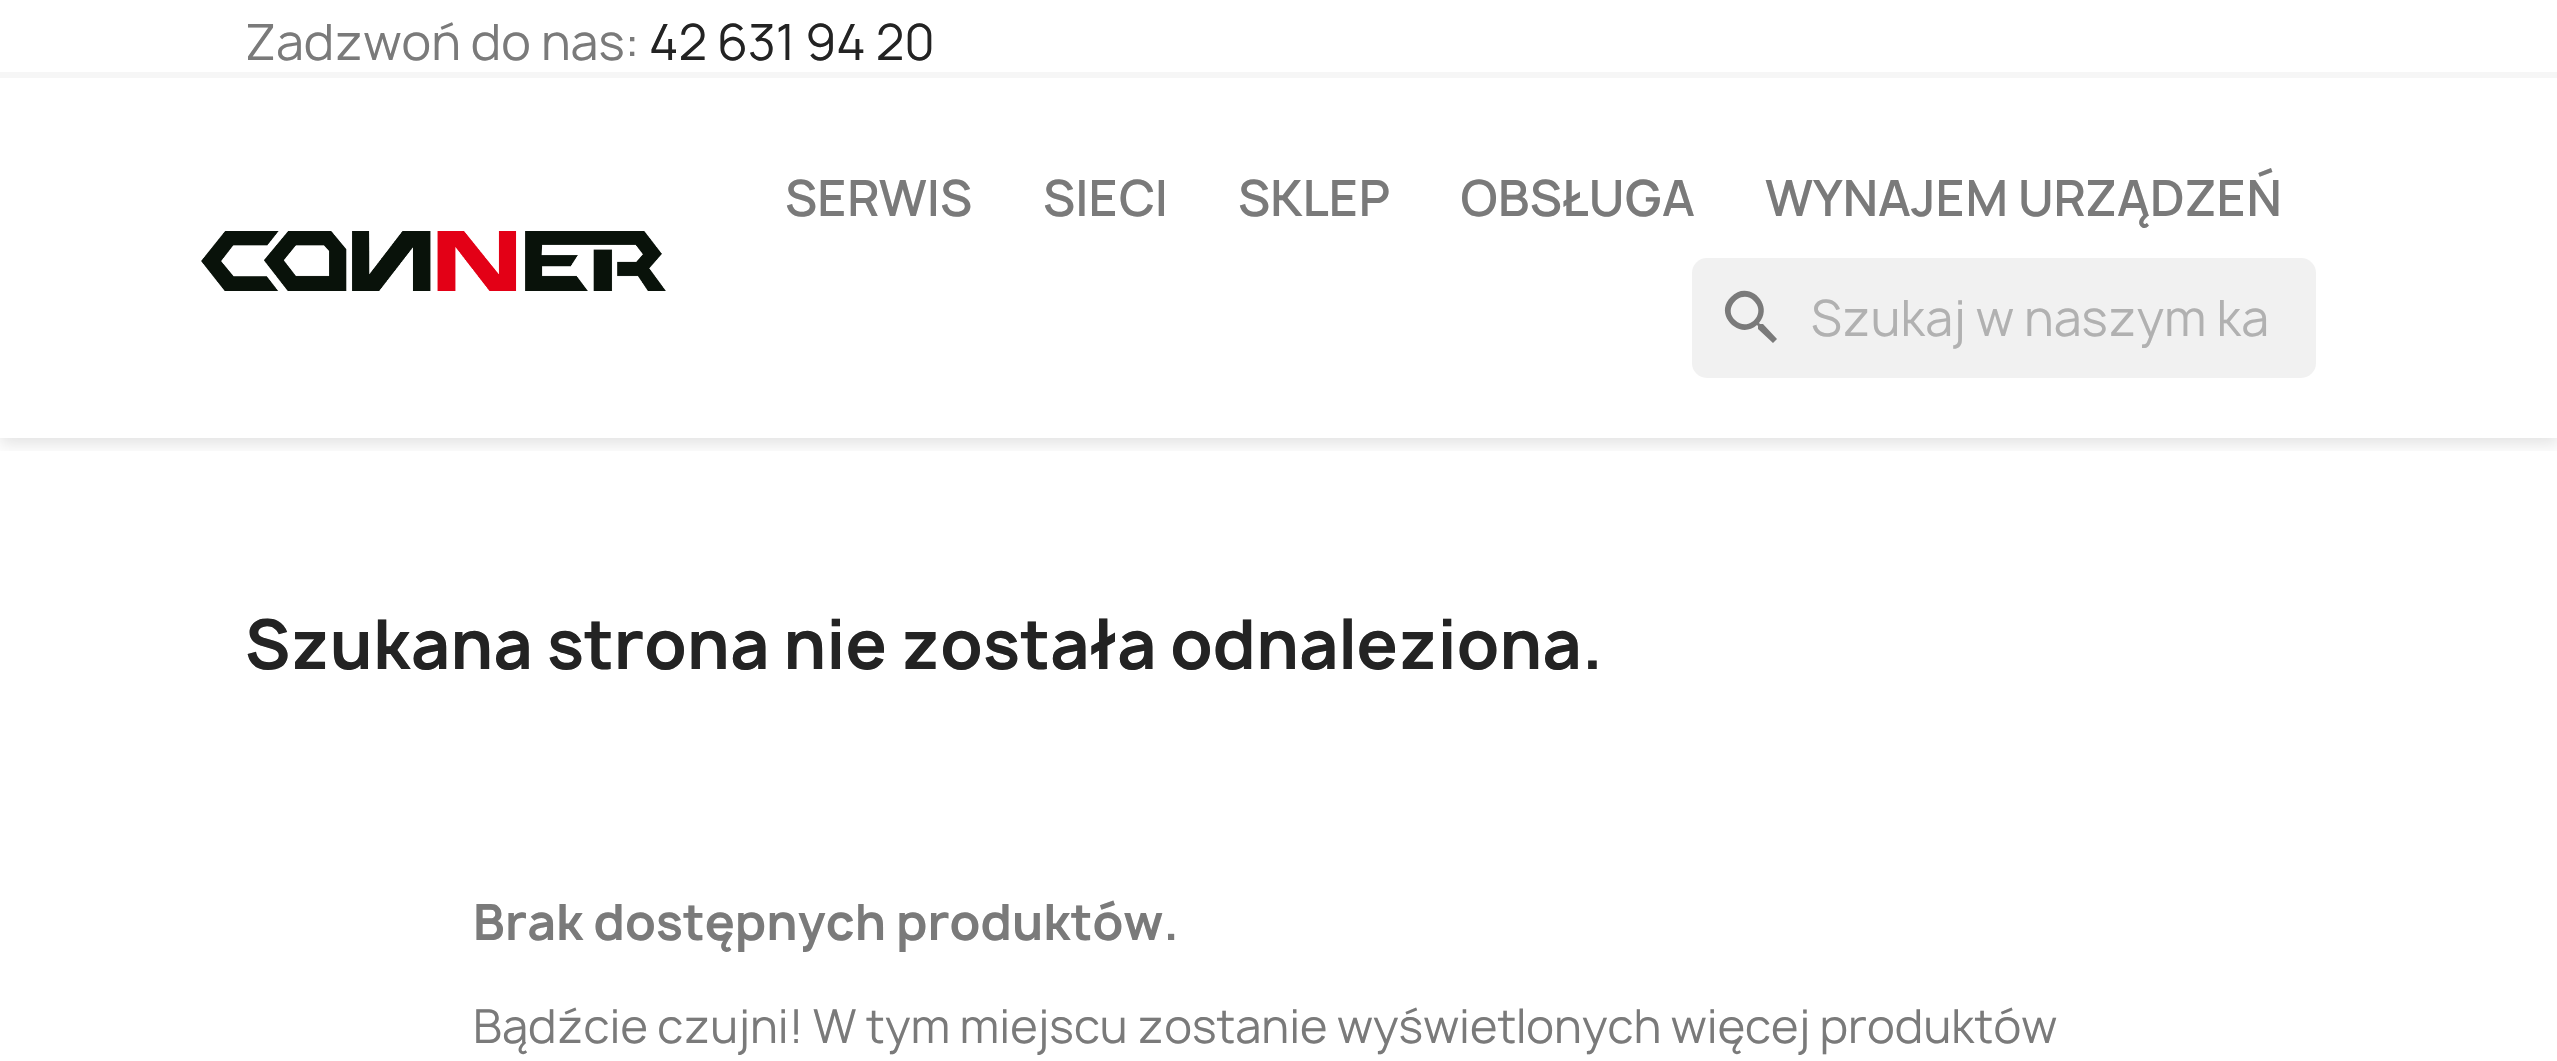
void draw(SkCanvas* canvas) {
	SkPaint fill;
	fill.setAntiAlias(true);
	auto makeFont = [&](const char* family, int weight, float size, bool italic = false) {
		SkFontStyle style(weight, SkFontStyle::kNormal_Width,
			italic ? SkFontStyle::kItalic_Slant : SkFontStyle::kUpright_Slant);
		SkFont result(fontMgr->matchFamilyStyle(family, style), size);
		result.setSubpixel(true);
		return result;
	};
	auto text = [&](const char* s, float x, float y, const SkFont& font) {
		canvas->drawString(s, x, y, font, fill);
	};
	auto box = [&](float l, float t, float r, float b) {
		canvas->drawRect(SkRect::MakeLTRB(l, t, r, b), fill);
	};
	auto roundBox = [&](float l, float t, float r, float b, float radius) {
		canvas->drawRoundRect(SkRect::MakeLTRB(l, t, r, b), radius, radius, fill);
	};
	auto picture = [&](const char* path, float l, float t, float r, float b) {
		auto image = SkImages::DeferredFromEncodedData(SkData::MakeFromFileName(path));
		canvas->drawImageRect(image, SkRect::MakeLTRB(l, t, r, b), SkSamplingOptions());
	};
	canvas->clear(0xFFFFFFFF);
	canvas->save();
	canvas->clipRect(SkRect::MakeLTRB(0, 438, 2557, 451));
	fill.setColor(0x1C000000);
	fill.setMaskFilter(SkMaskFilter::MakeBlur(kNormal_SkBlurStyle, 7.5f));
	canvas->drawRect(SkRect::MakeLTRB(0, -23, 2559, 444), fill);
	fill.setMaskFilter(nullptr);
	canvas->restore();
	fill.setColor(0xFFF6F6F6);
	box(0, 72, 2557, 78);
	picture("image0.png", 201, 231, 666, 291);
	fill.setColor(0xFFF1F1F1);
	roundBox(1692, 258, 2316, 378, 15);
	fill.setColor(0xFF7A7A7A);
	canvas->drawPath(SkPathBuilder().moveTo(1735, 320).cubicTo(1748, 333, 1767, 314, 1754, 301).cubicTo(1742, 288, 1722, 308, 1735, 320).close().moveTo(1763, 324).lineTo(1777, 339).lineTo(1773, 343).lineTo(1758, 329).lineTo(1758, 326).lineTo(1757, 325).cubicTo(1739, 341, 1713, 314, 1731, 297).cubicTo(1748, 279, 1775, 304, 1759, 323).lineTo(1760, 324).close().detach(), fill);
	auto font1 = makeFont("Manrope", 400, 48);
	text("Zadzwoń do nas:", 245, 60, font1);
	fill.setColor(0xFF232323);
	text("42 631 94 20", 649, 60, font1);
	auto font2 = makeFont("Manrope", 600, 48);
	fill.setColor(0xFF7A7A7A);
	text("SERWIS", 785, 216, font2);
	text("SIECI", 1043, 216, font2);
	text("SKLEP", 1238, 216, font2);
	text("OBSŁUGA", 1460, 216, font2);
	text("WYNAJEM URZĄDZEŃ", 1765, 216, font2);
	fill.setColor(0xFFB1B1B1);
	text("Szukaj w naszym ka", 1811, 336, font1);
	auto font3 = makeFont("Manrope", 700, 66);
	fill.setColor(0xFF232323);
	text("Szukana strona nie została odnaleziona.", 245, 669, font3);
	auto font4 = makeFont("Manrope", 700, 48);
	fill.setColor(0xFF7A7A7A);
	text("Brak dostępnych produktów.", 473, 940, font4);
	auto font5 = makeFont("Manrope", 400, 45);
	text("Bądźcie czujni! W tym miejscu zostanie wyświetlonych więcej produktów", 473, 1043, font5);
}
